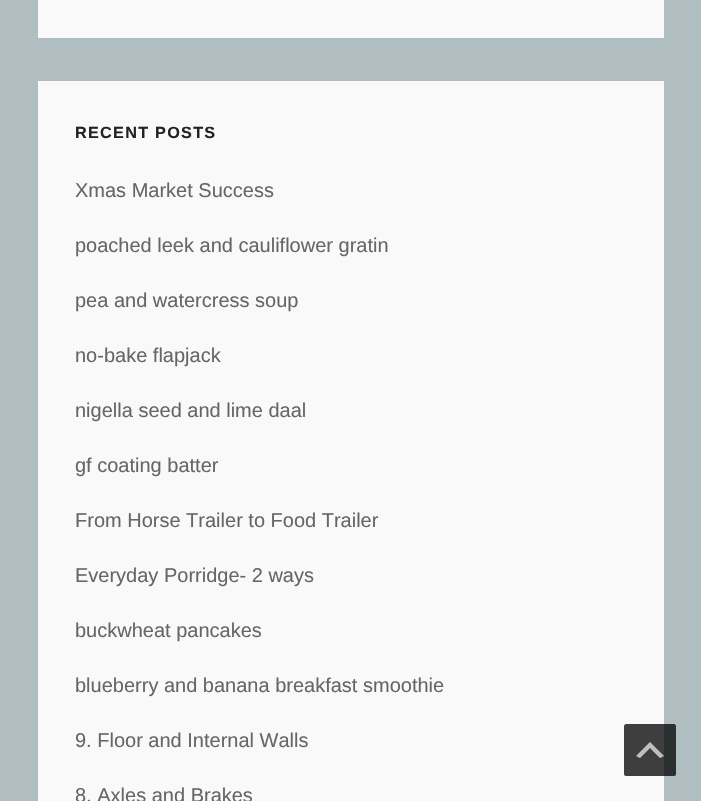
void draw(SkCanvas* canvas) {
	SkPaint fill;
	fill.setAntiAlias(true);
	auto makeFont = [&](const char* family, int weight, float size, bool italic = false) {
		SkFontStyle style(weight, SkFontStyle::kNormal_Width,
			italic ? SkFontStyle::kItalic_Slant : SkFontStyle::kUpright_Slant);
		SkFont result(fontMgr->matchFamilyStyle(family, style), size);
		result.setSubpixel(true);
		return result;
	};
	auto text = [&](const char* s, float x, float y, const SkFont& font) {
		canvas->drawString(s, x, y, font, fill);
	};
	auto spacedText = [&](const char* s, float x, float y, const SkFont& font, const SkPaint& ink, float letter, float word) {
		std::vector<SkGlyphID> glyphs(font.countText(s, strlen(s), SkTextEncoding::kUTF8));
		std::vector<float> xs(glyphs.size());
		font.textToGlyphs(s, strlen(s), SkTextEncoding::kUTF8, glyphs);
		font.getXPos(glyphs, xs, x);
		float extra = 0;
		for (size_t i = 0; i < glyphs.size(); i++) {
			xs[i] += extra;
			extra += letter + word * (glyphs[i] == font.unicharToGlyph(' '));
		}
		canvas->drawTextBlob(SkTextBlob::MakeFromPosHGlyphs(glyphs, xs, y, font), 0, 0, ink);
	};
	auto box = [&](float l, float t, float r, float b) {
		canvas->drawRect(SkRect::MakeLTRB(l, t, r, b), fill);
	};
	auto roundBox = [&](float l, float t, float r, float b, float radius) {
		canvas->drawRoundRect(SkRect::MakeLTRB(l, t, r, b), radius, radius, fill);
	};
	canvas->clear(0xFFB0BDC1);
	fill.setColor(0xFFF9F9F9);
	box(38, 0, 664, 38);
	box(38, 81, 664, 801);
	fill.setColor(0x80000000);
	roundBox(624, 724, 676, 776, 2.5f);
	fill.setColor(0xFFFCFCFC);
	canvas->drawPath(SkPathBuilder().moveTo(660, 758).lineTo(650, 748).lineTo(640, 758).lineTo(636, 756).lineTo(650, 742).lineTo(664, 756).close().detach(), fill);
	fill.setColor(0x80000000);
	roundBox(624, 724, 676, 776, 2.5f);
	fill.setColor(0x80FFFFFF);
	canvas->drawPath(SkPathBuilder().moveTo(660, 758).lineTo(650, 748).lineTo(640, 758).lineTo(636, 756).lineTo(650, 742).lineTo(664, 756).close().detach(), fill);
	auto font1 = makeFont("Liberation Sans", 700, 16.25f);
	fill.setColor(0xFF222222);
	spacedText("RECENT POSTS", 75, 138, font1, fill, 1.25f, 0);
	auto font2 = makeFont("Liberation Sans", 400, 20);
	fill.setColor(0xFF666666);
	text("Xmas Market Success", 75, 197, font2);
	text("poached leek and cauliflower gratin", 75, 252, font2);
	text("pea and watercress soup", 75, 307, font2);
	text("no-bake flapjack", 75, 362, font2);
	text("nigella seed and lime daal", 75, 417, font2);
	text("gf coating batter", 75, 472, font2);
	text("From Horse Trailer to Food Trailer", 75, 527, font2);
	text("Everyday Porridge- 2 ways", 75, 582, font2);
	text("buckwheat pancakes", 75, 637, font2);
	text("blueberry and banana breakfast smoothie", 75, 692, font2);
	text("9. Floor and Internal Walls", 75, 747, font2);
	text("8. Axles and Brakes", 75, 802, font2);
}
